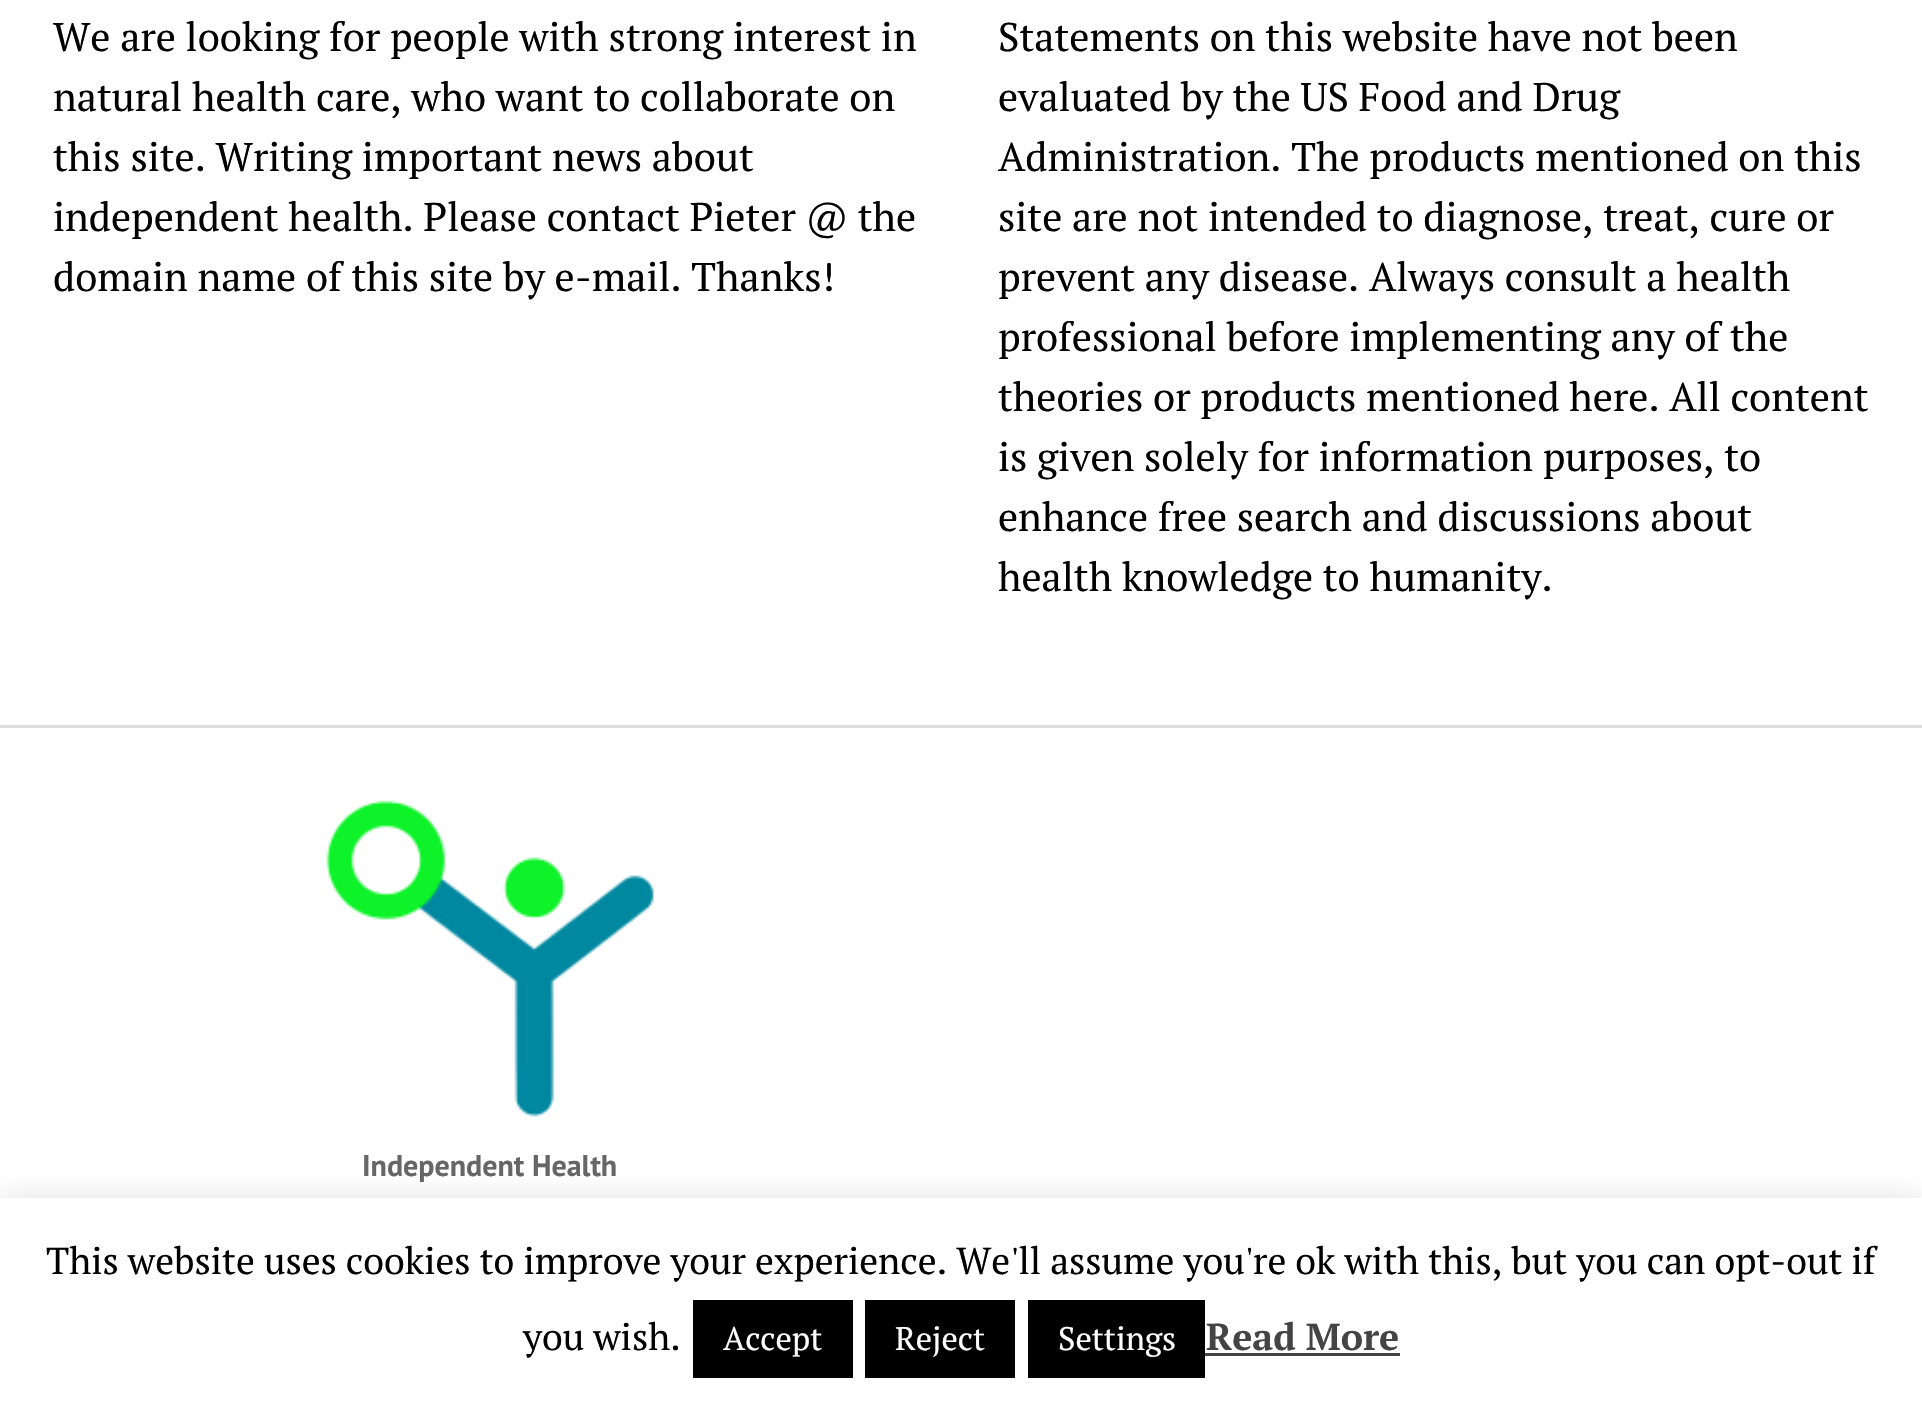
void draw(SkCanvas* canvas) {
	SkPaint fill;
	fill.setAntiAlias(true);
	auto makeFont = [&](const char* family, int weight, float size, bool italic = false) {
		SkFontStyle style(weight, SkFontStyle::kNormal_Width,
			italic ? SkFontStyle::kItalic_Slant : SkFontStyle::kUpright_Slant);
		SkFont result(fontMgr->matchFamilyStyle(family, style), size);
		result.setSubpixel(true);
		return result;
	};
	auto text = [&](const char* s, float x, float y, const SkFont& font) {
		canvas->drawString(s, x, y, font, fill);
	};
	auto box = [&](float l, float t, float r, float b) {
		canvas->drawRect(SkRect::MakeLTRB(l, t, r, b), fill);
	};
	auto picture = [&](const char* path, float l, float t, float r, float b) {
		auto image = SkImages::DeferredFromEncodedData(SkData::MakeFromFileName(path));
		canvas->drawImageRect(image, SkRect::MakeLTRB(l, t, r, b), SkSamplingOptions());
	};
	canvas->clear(0xFFFFFFFF);
	fill.setColor(0xFFDCDCDC);
	box(0, 725, 1922, 728);
	picture("image0.png", 326, 800, 654, 1117);
	fill.setColor(0x4DACABAB);
	fill.setMaskFilter(SkMaskFilter::MakeBlur(kNormal_SkBlurStyle, 12.5f));
	canvas->drawRect(SkRect::MakeLTRB(0, 1195, 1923, 1405), fill);
	fill.setMaskFilter(nullptr);
	fill.setColor(0xFFFFFFFF);
	box(0, 1198, 1922, 1406);
	fill.setColor(0xFF000000);
	box(693, 1300, 853, 1378);
	box(865, 1300, 1015, 1378);
	box(1028, 1300, 1205, 1378);
	fill.setColor(0xFF444444);
	box(1205, 1353, 1400, 1356);
	auto font1 = makeFont("PT Serif", 400, 40);
	fill.setColor(0xFF000000);
	text("We are looking for people with strong interest in", 53, 51, font1);
	text("natural health care, who want to collaborate on", 53, 111, font1);
	text("this site. Writing important news about", 53, 171, font1);
	text("independent health. Please contact Pieter @ the", 53, 231, font1);
	text("domain name of this site by e-mail. Thanks!", 53, 291, font1);
	text("Statements on this website have not been", 998, 51, font1);
	text("evaluated by the US Food and Drug", 998, 111, font1);
	text("Administration. The products mentioned on this", 998, 171, font1);
	text("site are not intended to diagnose, treat, cure or", 998, 231, font1);
	text("prevent any disease. Always consult a health", 998, 291, font1);
	text("professional before implementing any of the", 998, 351, font1);
	text("theories or products mentioned here. All content", 998, 411, font1);
	text("is given solely for information purposes, to", 998, 471, font1);
	text("enhance free search and discussions about", 998, 531, font1);
	text("health knowledge to humanity.", 998, 591, font1);
	auto font2 = makeFont("PT Sans", 700, 30);
	fill.setColor(0xFF666666);
	text("Independent Health", 362, 1176, font2);
	auto font3 = makeFont("PT Serif", 400, 37.5f);
	fill.setColor(0xFF000000);
	text("This website uses cookies to improve your experience. We'll assume you're ok with this, but you can opt-out if", 46, 1274, font3);
	text("you wish.", 523, 1350, font3);
	auto font4 = makeFont("PT Serif", 400, 32.5f);
	fill.setColor(0xFFFFFFFF);
	text("Accept", 723, 1350, font4);
	text("Reject", 895, 1350, font4);
	text("Settings", 1058, 1350, font4);
	auto font5 = makeFont("PT Serif", 700, 37.5f);
	fill.setColor(0xFF444444);
	text("Read More", 1206, 1350, font5);
}
